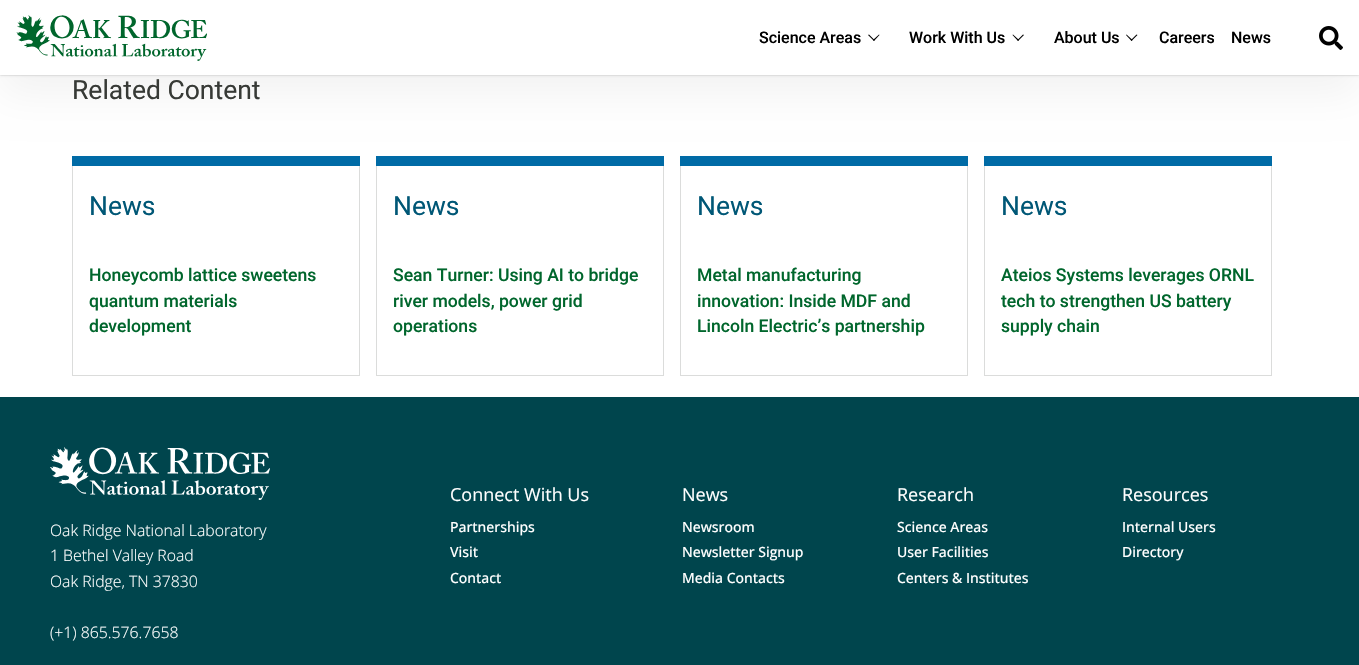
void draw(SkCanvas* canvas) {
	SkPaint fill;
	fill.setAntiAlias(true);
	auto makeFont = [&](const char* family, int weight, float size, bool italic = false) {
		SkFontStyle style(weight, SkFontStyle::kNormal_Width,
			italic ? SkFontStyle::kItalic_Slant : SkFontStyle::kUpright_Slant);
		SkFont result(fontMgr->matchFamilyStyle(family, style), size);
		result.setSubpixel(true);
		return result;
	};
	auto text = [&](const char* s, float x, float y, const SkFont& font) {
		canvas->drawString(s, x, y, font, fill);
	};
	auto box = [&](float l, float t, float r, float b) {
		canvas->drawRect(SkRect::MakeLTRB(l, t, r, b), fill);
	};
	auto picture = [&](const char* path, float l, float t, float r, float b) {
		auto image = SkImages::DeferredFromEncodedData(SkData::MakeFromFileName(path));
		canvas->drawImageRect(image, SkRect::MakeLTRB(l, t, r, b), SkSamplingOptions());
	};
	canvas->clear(0xFFFFFFFF);
	fill.setColor(0x0D000000);
	fill.setMaskFilter(SkMaskFilter::MakeBlur(kNormal_SkBlurStyle, 20));
	canvas->drawRect(SkRect::MakeLTRB(0, 18, 1359, 93), fill);
	fill.setMaskFilter(nullptr);
	fill.setColor(0x24000000);
	fill.setMaskFilter(SkMaskFilter::MakeBlur(kNormal_SkBlurStyle, 1));
	canvas->drawRect(SkRect::MakeLTRB(0, 0, 1359, 75), fill);
	fill.setMaskFilter(nullptr);
	fill.setMaskFilter(SkMaskFilter::MakeBlur(kNormal_SkBlurStyle, 1));
	canvas->drawRect(SkRect::MakeLTRB(0, 0, 1359, 75), fill);
	fill.setMaskFilter(nullptr);
	fill.setColor(0xFFFFFFFF);
	box(0, 0, 1359, 75);
	picture("image0.png", 16, 15, 207, 61);
	fill.setColor(0xFF000000);
	canvas->drawPath(SkPathBuilder().moveTo(873, 40).lineTo(879, 34.5f).lineTo(879.5f, 35).lineTo(874, 41).close().detach(), fill);
	canvas->drawPath(SkPathBuilder().moveTo(869, 34.5f).lineTo(874.5f, 40).lineTo(874, 41).lineTo(868, 35).close().detach(), fill);
	canvas->drawPath(SkPathBuilder().moveTo(1017.5f, 40).lineTo(1023, 34.5f).lineTo(1024, 35).lineTo(1018, 41).close().detach(), fill);
	canvas->drawPath(SkPathBuilder().moveTo(1013, 34.5f).lineTo(1019, 40).lineTo(1018, 41).lineTo(1012.5f, 35).close().detach(), fill);
	canvas->drawPath(SkPathBuilder().moveTo(1131, 40).lineTo(1136.5f, 34.5f).lineTo(1137.5f, 35).lineTo(1131.5f, 41).close().detach(), fill);
	canvas->drawPath(SkPathBuilder().moveTo(1126.5f, 34.5f).lineTo(1132.5f, 40).lineTo(1131.5f, 41).lineTo(1126, 35).close().detach(), fill);
	picture("image1.png", 1319, 26, 1343, 50);
	fill.setColor(0xFF006BA6);
	box(72, 156, 360, 166);
	fill.setColor(0xFFDBDCDB);
	box(359, 166, 360, 376);
	box(72, 375, 360, 376);
	box(72, 166, 73, 376);
	fill.setColor(0xFF006BA6);
	box(376, 156, 664, 166);
	fill.setColor(0xFFDBDCDB);
	box(663, 166, 664, 376);
	box(376, 375, 664, 376);
	box(376, 166, 377, 376);
	fill.setColor(0xFF006BA6);
	box(680, 156, 968, 166);
	fill.setColor(0xFFDBDCDB);
	box(967, 166, 968, 376);
	box(680, 375, 968, 376);
	box(680, 166, 681, 376);
	fill.setColor(0xFF006BA6);
	box(984, 156, 1272, 166);
	fill.setColor(0xFFDBDCDB);
	box(1271, 166, 1272, 376);
	box(984, 375, 1272, 376);
	box(984, 166, 985, 376);
	fill.setColor(0xFF00454D);
	box(0, 397, 1359, 665);
	picture("image2.png", 50, 447, 270, 500);
	auto font1 = makeFont("Roboto", 500, 16);
	fill.setColor(0xFF000000);
	text("Science Areas", 759, 43, font1);
	text("Work With Us", 909, 43, font1);
	text("About Us", 1054, 43, font1);
	text("Careers", 1159, 43, font1);
	text("News", 1231, 43, font1);
	auto font2 = makeFont("Roboto", 400, 26.5f);
	fill.setColor(0xFF373A36);
	text("Related Content", 72, 99, font2);
	fill.setColor(0xFF005776);
	text("News", 89, 215, font2);
	auto font3 = makeFont("Roboto", 500, 17.6f);
	fill.setColor(0xFF00662C);
	text("Honeycomb lattice sweetens", 89, 281, font3);
	text("quantum materials", 89, 307, font3);
	text("development", 89, 332, font3);
	fill.setColor(0xFF005776);
	text("News", 393, 215, font2);
	fill.setColor(0xFF00662C);
	text("Sean Turner: Using AI to bridge", 393, 281, font3);
	text("river models, power grid", 393, 307, font3);
	text("operations", 393, 332, font3);
	fill.setColor(0xFF005776);
	text("News", 697, 215, font2);
	fill.setColor(0xFF00662C);
	text("Metal manufacturing", 697, 281, font3);
	text("innovation: Inside MDF and", 697, 307, font3);
	text("Lincoln Electric’s partnership", 697, 332, font3);
	fill.setColor(0xFF005776);
	text("News", 1001, 215, font2);
	fill.setColor(0xFF00662C);
	text("Ateios Systems leverages ORNL", 1001, 281, font3);
	text("tech to strengthen US battery", 1001, 307, font3);
	text("supply chain", 1001, 332, font3);
	auto font4 = makeFont("Open Sans", 300, 15.8f);
	fill.setColor(0xFFFFFFFF);
	text("Oak Ridge National Laboratory", 50, 536, font4);
	text("1 Bethel Valley Road", 50, 561, font4);
	text("Oak Ridge, TN 37830", 50, 587, font4);
	text("(+1) 865.576.7658", 50, 638, font4);
	auto font5 = makeFont("Open Sans", 400, 18);
	text("Connect With Us", 450, 501, font5);
	auto font6 = makeFont("Open Sans", 500, 14);
	text("Partnerships", 450, 532, font6);
	text("Visit", 450, 557, font6);
	text("Contact", 450, 583, font6);
	text("News", 682, 501, font5);
	text("Newsroom", 682, 532, font6);
	text("Newsletter Signup", 682, 557, font6);
	text("Media Contacts", 682, 583, font6);
	text("Research", 897, 501, font5);
	text("Science Areas", 897, 532, font6);
	text("User Facilities", 897, 557, font6);
	text("Centers & Institutes", 897, 583, font6);
	text("Resources", 1122, 501, font5);
	text("Internal Users", 1122, 532, font6);
	text("Directory", 1122, 557, font6);
}
